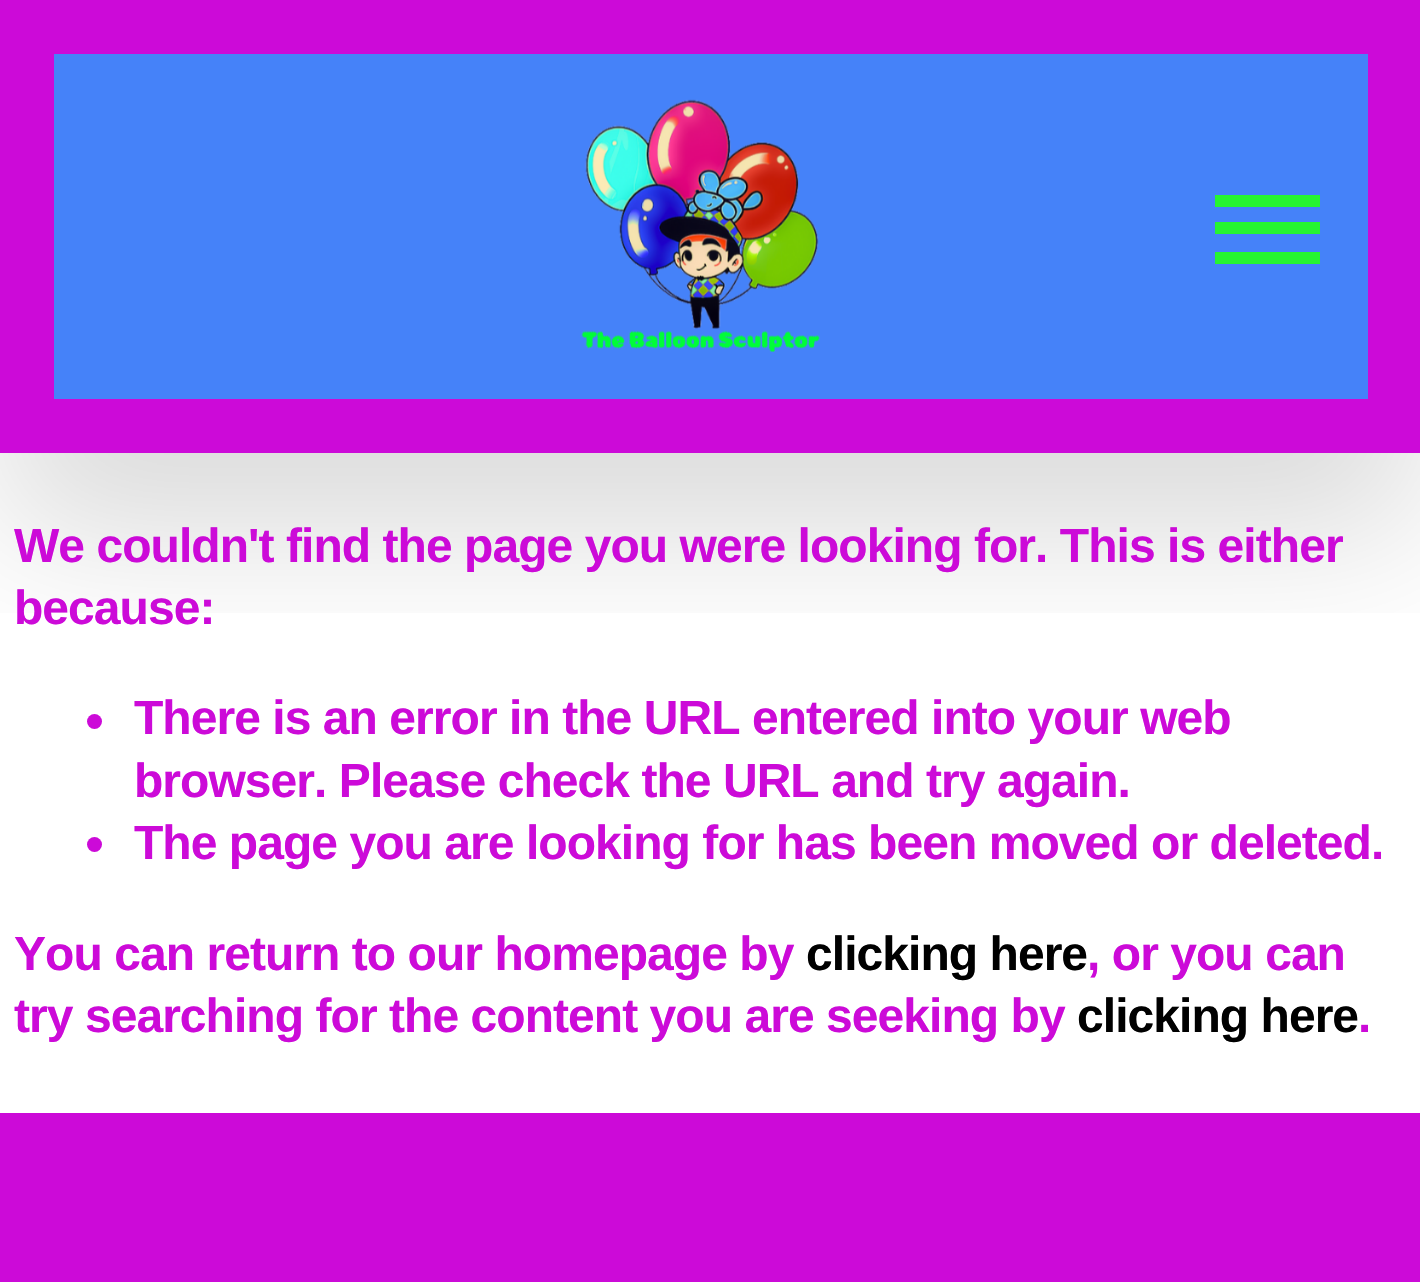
void draw(SkCanvas* canvas) {
	SkPaint fill;
	fill.setAntiAlias(true);
	auto makeFont = [&](const char* family, int weight, float size, bool italic = false) {
		SkFontStyle style(weight, SkFontStyle::kNormal_Width,
			italic ? SkFontStyle::kItalic_Slant : SkFontStyle::kUpright_Slant);
		SkFont result(fontMgr->matchFamilyStyle(family, style), size);
		result.setSubpixel(true);
		return result;
	};
	auto spacedText = [&](const char* s, float x, float y, const SkFont& font, const SkPaint& ink, float letter, float word) {
		std::vector<SkGlyphID> glyphs(font.countText(s, strlen(s), SkTextEncoding::kUTF8));
		std::vector<float> xs(glyphs.size());
		font.textToGlyphs(s, strlen(s), SkTextEncoding::kUTF8, glyphs);
		font.getXPos(glyphs, xs, x);
		float extra = 0;
		for (size_t i = 0; i < glyphs.size(); i++) {
			xs[i] += extra;
			extra += letter + word * (glyphs[i] == font.unicharToGlyph(' '));
		}
		canvas->drawTextBlob(SkTextBlob::MakeFromPosHGlyphs(glyphs, xs, y, font), 0, 0, ink);
	};
	auto box = [&](float l, float t, float r, float b) {
		canvas->drawRect(SkRect::MakeLTRB(l, t, r, b), fill);
	};
	auto picture = [&](const char* path, float l, float t, float r, float b) {
		auto image = SkImages::DeferredFromEncodedData(SkData::MakeFromFileName(path));
		canvas->drawImageRect(image, SkRect::MakeLTRB(l, t, r, b), SkSamplingOptions());
	};
	canvas->clear(0xFFFFFFFF);
	fill.setColor(0xFF4582F9);
	box(54, 54, 1368, 399);
	fill.setColor(0xFFCC0AD8);
	canvas->drawCircle(94.5f, 721.5f, 7.5f, fill);
	canvas->save();
	canvas->clipRect(SkRect::MakeLTRB(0, 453, 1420, 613));
	fill.setColor(0x26000000);
	fill.setMaskFilter(SkMaskFilter::MakeBlur(kNormal_SkBlurStyle, 76.5f));
	canvas->drawRect(SkRect::MakeLTRB(3, 81, 1419, 528), fill);
	fill.setMaskFilter(nullptr);
	canvas->restore();
	fill.setStyle(SkPaint::kStroke_Style);
	fill.setStrokeWidth(54);
	fill.setColor(0xFFCC0AD8);
	canvas->drawRect(SkRect::MakeLTRB(27, 27, 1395, 426), fill);
	picture("image0.png", 581, 99, 820, 352);
	fill.setStyle(SkPaint::kFill_Style);
	fill.setColor(0xFF26F531);
	box(1215, 195, 1320, 207);
	box(1215, 222, 1320, 234);
	box(1215, 252, 1320, 264);
	fill.setColor(0xFFCC0AD8);
	canvas->drawCircle(94.5f, 844.5f, 7.5f, fill);
	box(0, 1113, 1420, 1282);
	auto font1 = makeFont("Liberation Sans", 700, 48);
	spacedText("We couldn't find the page you were looking for. This is either", 14, 562, font1, fill, -0.95f, 0);
	spacedText("because:", 14, 624, font1, fill, -0.95f, 0);
	spacedText("There is an error in the URL entered into your web", 134, 734, font1, fill, -0.95f, 0);
	spacedText("browser. Please check the URL and try again.", 134, 797, font1, fill, -0.95f, 0);
	spacedText("The page you are looking for has been moved or deleted.", 134, 859, font1, fill, -0.95f, 0);
	spacedText("You can return to our homepage by", 14, 970, font1, fill, -0.95f, 0);
	fill.setColor(0xFF000000);
	spacedText("clicking here", 806, 970, font1, fill, -0.95f, 0);
	fill.setColor(0xFFCC0AD8);
	spacedText(", or you can", 1087, 970, font1, fill, -0.95f, 0);
	spacedText("try searching for the content you are seeking by", 14, 1032, font1, fill, -0.95f, 0);
	fill.setColor(0xFF000000);
	spacedText("clicking here", 1077, 1032, font1, fill, -0.95f, 0);
	fill.setColor(0xFFCC0AD8);
	spacedText(".", 1358, 1032, font1, fill, -0.95f, 0);
}
